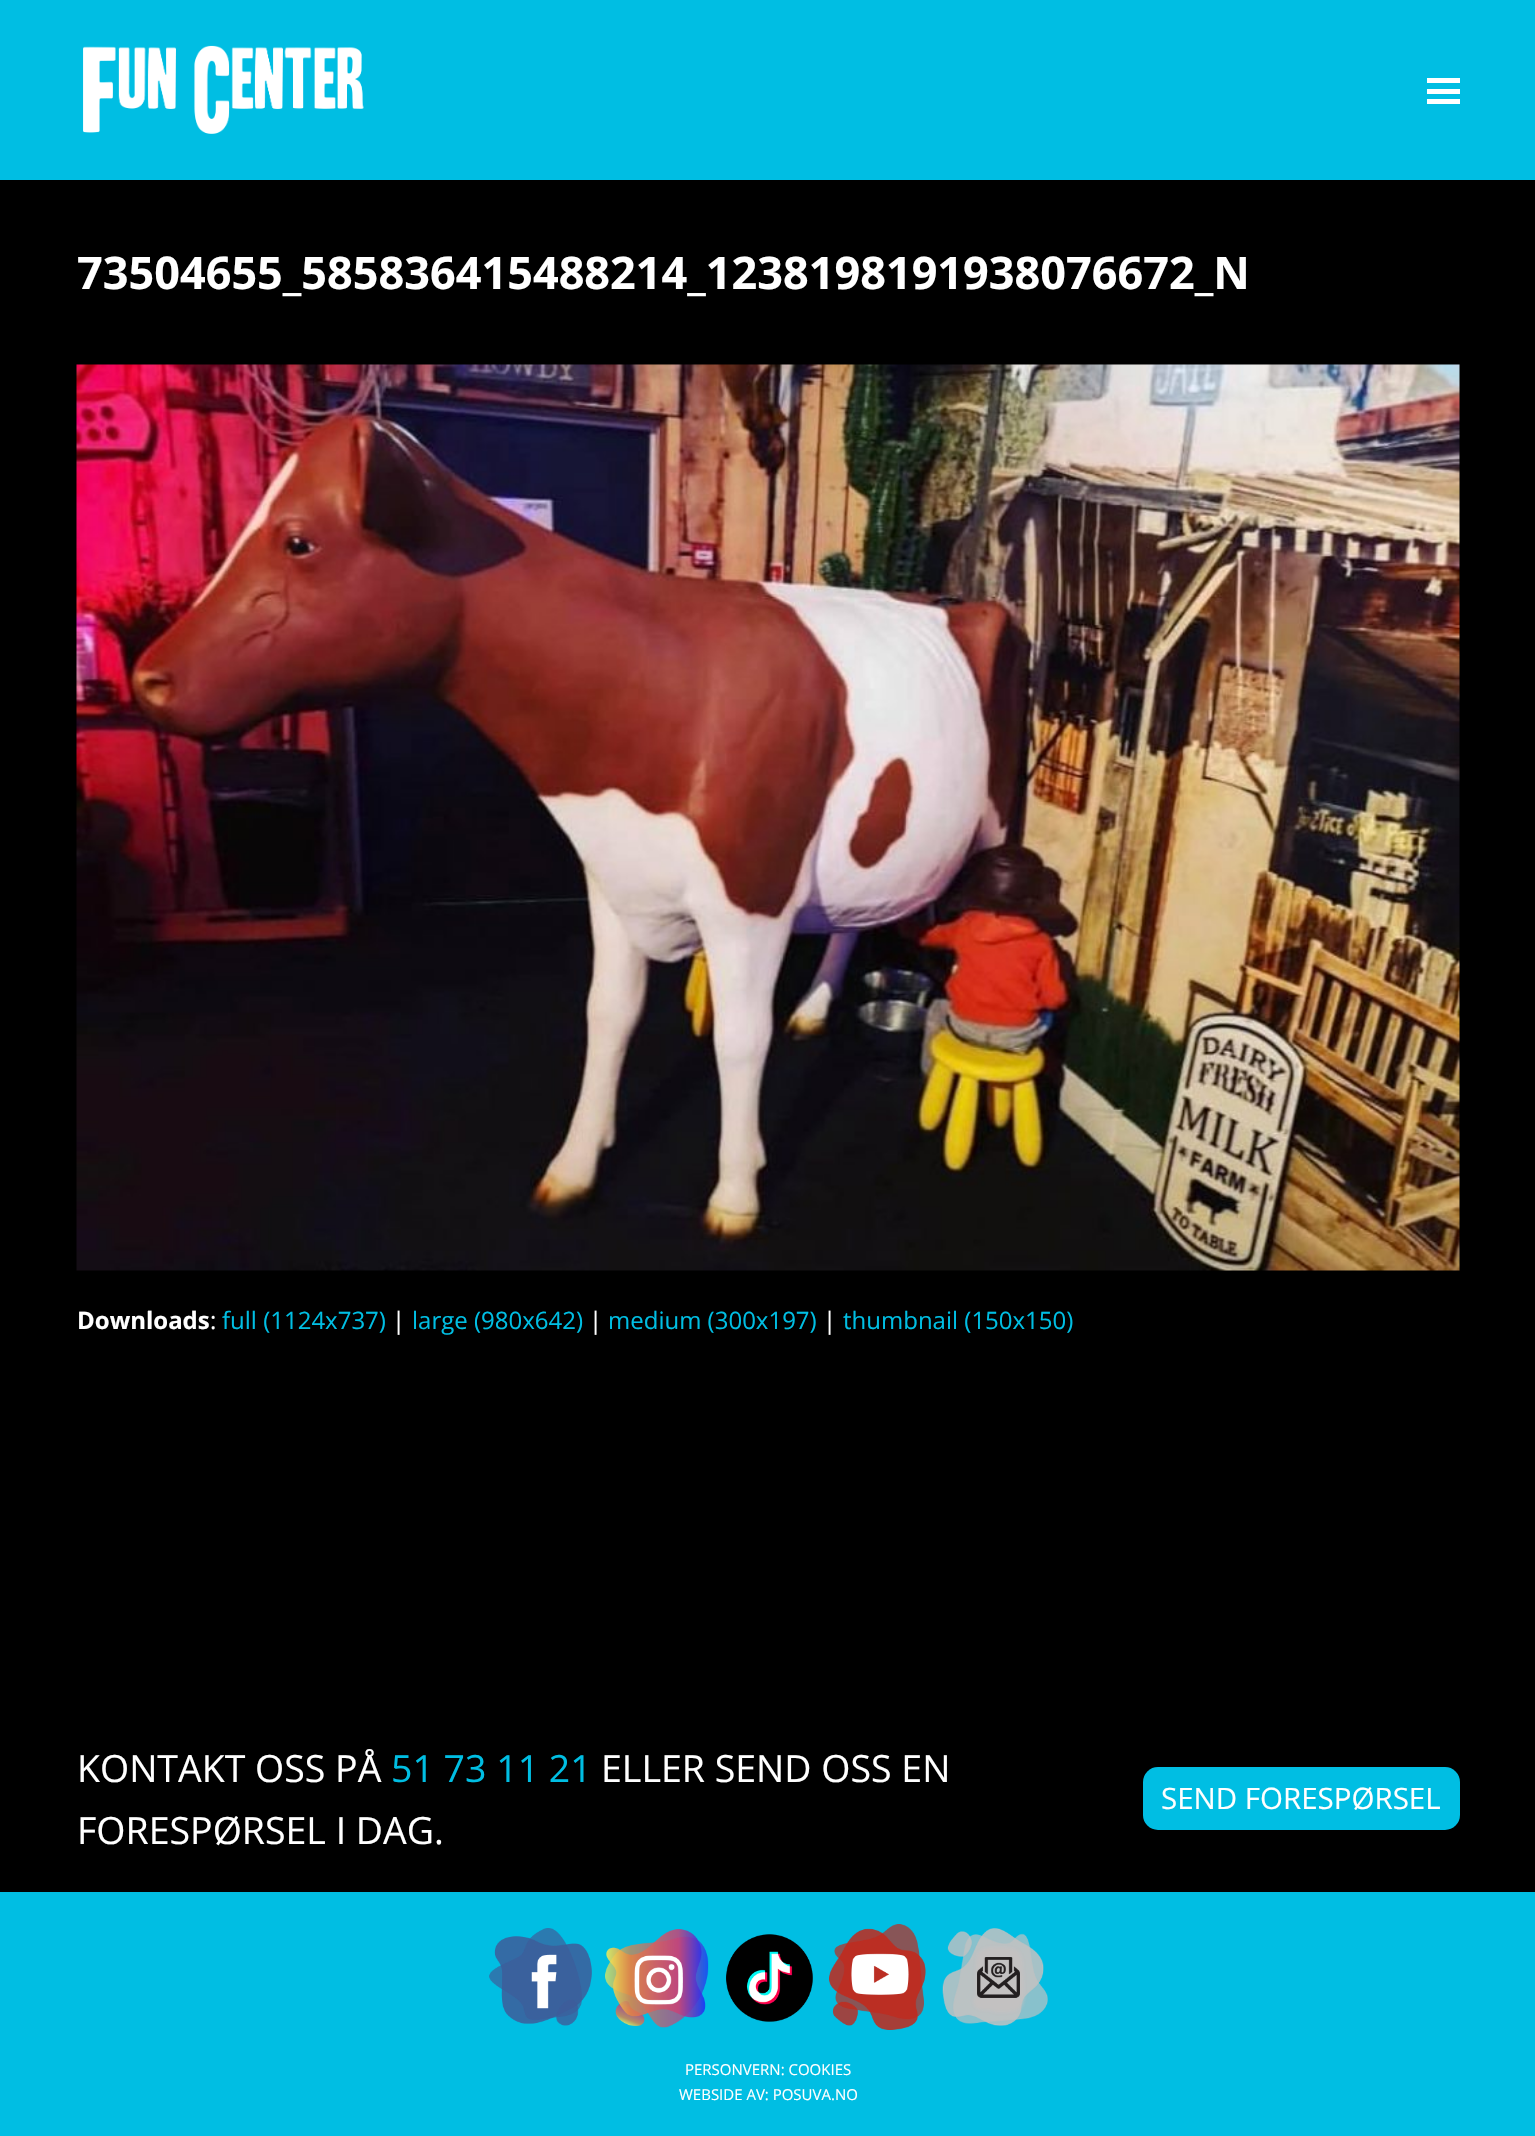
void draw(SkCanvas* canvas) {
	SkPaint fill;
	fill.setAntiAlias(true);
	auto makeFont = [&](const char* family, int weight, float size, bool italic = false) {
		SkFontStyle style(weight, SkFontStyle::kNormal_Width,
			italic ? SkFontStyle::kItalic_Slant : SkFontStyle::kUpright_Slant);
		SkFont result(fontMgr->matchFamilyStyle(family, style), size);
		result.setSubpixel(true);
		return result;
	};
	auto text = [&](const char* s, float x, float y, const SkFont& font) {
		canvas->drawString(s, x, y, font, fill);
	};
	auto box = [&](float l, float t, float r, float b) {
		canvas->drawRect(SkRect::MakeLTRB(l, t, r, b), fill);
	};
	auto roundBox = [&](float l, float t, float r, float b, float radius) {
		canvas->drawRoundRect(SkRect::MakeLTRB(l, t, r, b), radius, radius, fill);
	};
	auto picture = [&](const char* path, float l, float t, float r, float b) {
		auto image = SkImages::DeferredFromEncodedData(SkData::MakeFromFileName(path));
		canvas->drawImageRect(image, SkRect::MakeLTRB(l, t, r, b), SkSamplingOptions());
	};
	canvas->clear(0xFF000000);
	fill.setColor(0xFF00BEE3);
	box(0, 0, 1535, 180);
	picture("image0.png", 83, 45, 364, 134);
	fill.setColor(0xFFFFFFFF);
	box(1427, 89, 1460, 94);
	box(1427, 78, 1460, 83);
	box(1427, 99, 1460, 104);
	picture("image1.png", 76, 364, 1460, 1271);
	fill.setColor(0xFF00BEE3);
	roundBox(1143, 1767, 1460, 1830, 15);
	box(0, 1892, 1535, 2136);
	picture("image2.png", 489, 1928, 592, 2026);
	picture("image3.png", 605, 1929, 709, 2028);
	picture("image4.png", 726, 1934, 813, 2022);
	picture("image5.png", 829, 1924, 926, 2030);
	picture("image6.png", 942, 1928, 1048, 2026);
	auto font1 = makeFont("Open Sans", 700, 45);
	fill.setColor(0xFFFFFFFF);
	text("73504655_585836415488214_1238198191938076672_N", 77, 289, font1);
	auto font2 = makeFont("Open Sans", 700, 24);
	text("Downloads", 77, 1329, font2);
	auto font3 = makeFont("Open Sans", 400, 24);
	text(":", 210, 1329, font3);
	fill.setColor(0xFF00BEE3);
	text("full (1124x737)", 222, 1329, font3);
	fill.setColor(0xFFFFFFFF);
	text("|", 392, 1329, font3);
	fill.setColor(0xFF00BEE3);
	text("large (980x642)", 412, 1329, font3);
	fill.setColor(0xFFFFFFFF);
	text("|", 589, 1329, font3);
	fill.setColor(0xFF00BEE3);
	text("medium (300x197)", 608, 1329, font3);
	fill.setColor(0xFFFFFFFF);
	text("|", 823, 1329, font3);
	fill.setColor(0xFF00BEE3);
	text("thumbnail (150x150)", 843, 1329, font3);
	auto font4 = makeFont("Open Sans", 400, 37.5f);
	fill.setColor(0xFFFFFFFF);
	text("KONTAKT OSS PÅ", 77, 1782, font4);
	fill.setColor(0xFF00BEE3);
	text("51 73 11 21", 391, 1782, font4);
	fill.setColor(0xFFFFFFFF);
	text("ELLER SEND OSS EN", 601, 1782, font4);
	text("FORESPØRSEL I DAG.", 77, 1844, font4);
	auto font5 = makeFont("Open Sans", 400, 29.5f);
	text("SEND FORESPØRSEL", 1161, 1809, font5);
	auto font6 = makeFont("Open Sans", 400, 15);
	text("PERSONVERN: COOKIES", 685, 2075, font6);
	text("WEBSIDE AV: POSUVA.NO", 679, 2100, font6);
}
